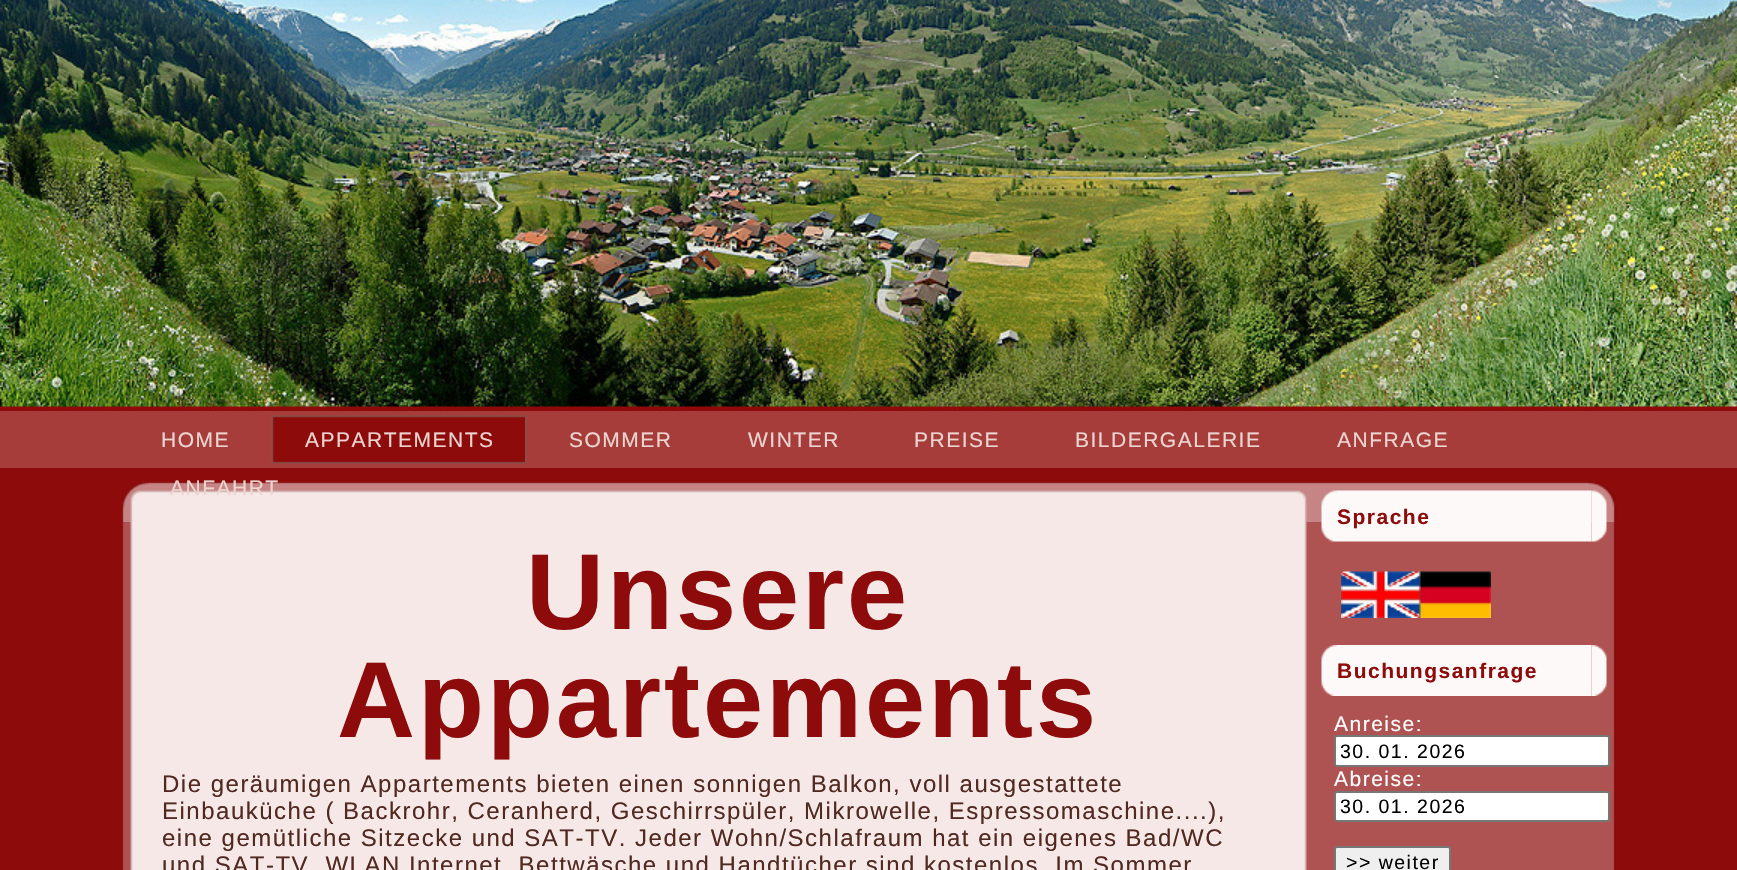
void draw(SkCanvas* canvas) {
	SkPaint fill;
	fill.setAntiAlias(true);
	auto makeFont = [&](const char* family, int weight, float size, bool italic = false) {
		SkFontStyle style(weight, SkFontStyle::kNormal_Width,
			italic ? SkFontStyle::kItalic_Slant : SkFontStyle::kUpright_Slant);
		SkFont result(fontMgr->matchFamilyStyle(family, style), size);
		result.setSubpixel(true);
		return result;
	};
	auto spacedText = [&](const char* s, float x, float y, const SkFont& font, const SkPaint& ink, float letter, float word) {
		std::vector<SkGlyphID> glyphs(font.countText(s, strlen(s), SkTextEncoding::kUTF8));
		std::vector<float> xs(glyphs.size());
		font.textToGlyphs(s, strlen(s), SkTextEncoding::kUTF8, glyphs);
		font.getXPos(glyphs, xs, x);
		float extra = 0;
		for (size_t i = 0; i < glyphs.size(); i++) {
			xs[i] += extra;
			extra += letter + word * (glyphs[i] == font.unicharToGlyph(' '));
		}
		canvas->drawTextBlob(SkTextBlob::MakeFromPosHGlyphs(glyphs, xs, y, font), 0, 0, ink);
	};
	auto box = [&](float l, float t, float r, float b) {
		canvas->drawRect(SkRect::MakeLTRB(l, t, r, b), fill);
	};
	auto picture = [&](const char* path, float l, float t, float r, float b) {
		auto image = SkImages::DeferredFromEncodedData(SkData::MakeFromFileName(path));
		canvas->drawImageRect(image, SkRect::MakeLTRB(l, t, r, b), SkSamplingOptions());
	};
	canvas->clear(0xFF8E0B0B);
	picture("image0.png", 0, 0, 1737, 411);
	fill.setColor(0xFFA63D3A);
	box(0, 411, 1737, 468);
	picture("image1.png", 271, 415, 525, 464);
	picture("image2.png", 525, 415, 527, 464);
	picture("image3.png", 122, 482, 1575, 522);
	picture("image4.png", 122, 482, 1575, 522);
	picture("image5.png", 1575, 482, 1617, 522);
	picture("image6.png", 1575, 482, 1617, 522);
	picture("image7.png", 130, 490, 1296, 501);
	picture("image8.png", 130, 490, 1296, 501);
	picture("image9.png", 1296, 490, 1307, 501);
	picture("image10.png", 1296, 490, 1307, 501);
	picture("image18.png", 122, 522, 1575, 870);
	picture("image11.png", 130, 501, 1296, 870);
	picture("image12.png", 1296, 501, 1307, 870);
	picture("image19.png", 1575, 522, 1617, 870);
	picture("image13.png", 1321, 490, 1592, 542);
	picture("image14.png", 1591, 490, 1607, 542);
	picture("image15.png", 1341, 571, 1491, 618);
	picture("image16.png", 1321, 645, 1592, 696);
	picture("image17.png", 1591, 645, 1607, 696);
	fill.setColor(0xFFFFFFFF);
	canvas->drawRoundRect(SkRect::MakeLTRB(1335, 736, 1609, 766), 2, 2, fill);
	fill.setStyle(SkPaint::kStroke_Style);
	fill.setStrokeWidth(2);
	fill.setColor(0xFF767676);
	canvas->drawRoundRect(SkRect::MakeLTRB(1335, 736, 1609, 766), 2, 2, fill);
	fill.setStyle(SkPaint::kFill_Style);
	fill.setColor(0xFFFFFFFF);
	canvas->drawRoundRect(SkRect::MakeLTRB(1335, 792, 1609, 821), 2, 2, fill);
	fill.setStyle(SkPaint::kStroke_Style);
	fill.setColor(0xFF767676);
	canvas->drawRoundRect(SkRect::MakeLTRB(1335, 792, 1609, 821), 2, 2, fill);
	fill.setStyle(SkPaint::kFill_Style);
	fill.setColor(0xFFEFEFEF);
	canvas->drawRoundRect(SkRect::MakeLTRB(1335, 847, 1450, 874), 2, 2, fill);
	fill.setStyle(SkPaint::kStroke_Style);
	fill.setColor(0xFF767676);
	canvas->drawRoundRect(SkRect::MakeLTRB(1335, 847, 1450, 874), 2, 2, fill);
	auto font1 = makeFont("Liberation Sans", 400, 21);
	fill.setStyle(SkPaint::kFill_Style);
	fill.setColor(0xFFECD5D0);
	spacedText("HOME", 161, 447, font1, fill, 1.5f, 0);
	spacedText("APPARTEMENTS", 305, 447, font1, fill, 1.5f, 0);
	spacedText("SOMMER", 569, 447, font1, fill, 1.5f, 0);
	spacedText("WINTER", 748, 447, font1, fill, 1.5f, 0);
	spacedText("PREISE", 914, 447, font1, fill, 1.5f, 0);
	spacedText("BILDERGALERIE", 1075, 447, font1, fill, 1.5f, 0);
	spacedText("ANFRAGE", 1337, 447, font1, fill, 1.5f, 0);
	spacedText("ANFAHRT", 170, 495, font1, fill, 1.5f, 0);
	auto font2 = makeFont("Liberation Sans", 700, 108);
	fill.setColor(0xFF8E0B0B);
	spacedText("Unsere", 526, 629, font2, fill, 3, 0);
	spacedText("Appartements", 337, 737, font2, fill, 3, 0);
	auto font3 = makeFont("Liberation Sans", 400, 24);
	fill.setColor(0xFF502921);
	spacedText("Die geräumigen Appartements bieten einen sonnigen Balkon, voll ausgestattete", 162, 792, font3, fill, 1.5f, 0);
	spacedText("Einbauküche ( Backrohr, Ceranherd, Geschirrspüler, Mikrowelle, Espressomaschine....),", 162, 819, font3, fill, 1.5f, 0);
	spacedText("eine gemütliche Sitzecke und SAT-TV. Jeder Wohn/Schlafraum hat ein eigenes Bad/WC", 162, 846, font3, fill, 1.5f, 0);
	spacedText("und SAT-TV. WLAN Internet, Bettwäsche und Handtücher sind kostenlos. Im Sommer", 162, 873, font3, fill, 1.5f, 0);
	auto font4 = makeFont("Liberation Sans", 700, 21);
	fill.setColor(0xFF8E0B0B);
	spacedText("Sprache", 1337, 524, font4, fill, 1.5f, 0);
	spacedText("Buchungsanfrage", 1337, 678, font4, fill, 1.5f, 0);
	fill.setColor(0xFFFFFFFF);
	spacedText("Anreise:", 1334, 731, font1, fill, 1.5f, 0);
	auto font5 = makeFont("Liberation Sans", 400, 19.5f);
	fill.setColor(0xFF000000);
	spacedText("30. 01. 2026", 1340, 758, font5, fill, 1.5f, 0);
	fill.setColor(0xFFFFFFFF);
	spacedText("Abreise:", 1334, 786, font1, fill, 1.5f, 0);
	fill.setColor(0xFF000000);
	spacedText("30. 01. 2026", 1340, 813, font5, fill, 1.5f, 0);
	spacedText(">> weiter", 1346, 869, font5, fill, 1.5f, 0);
}
